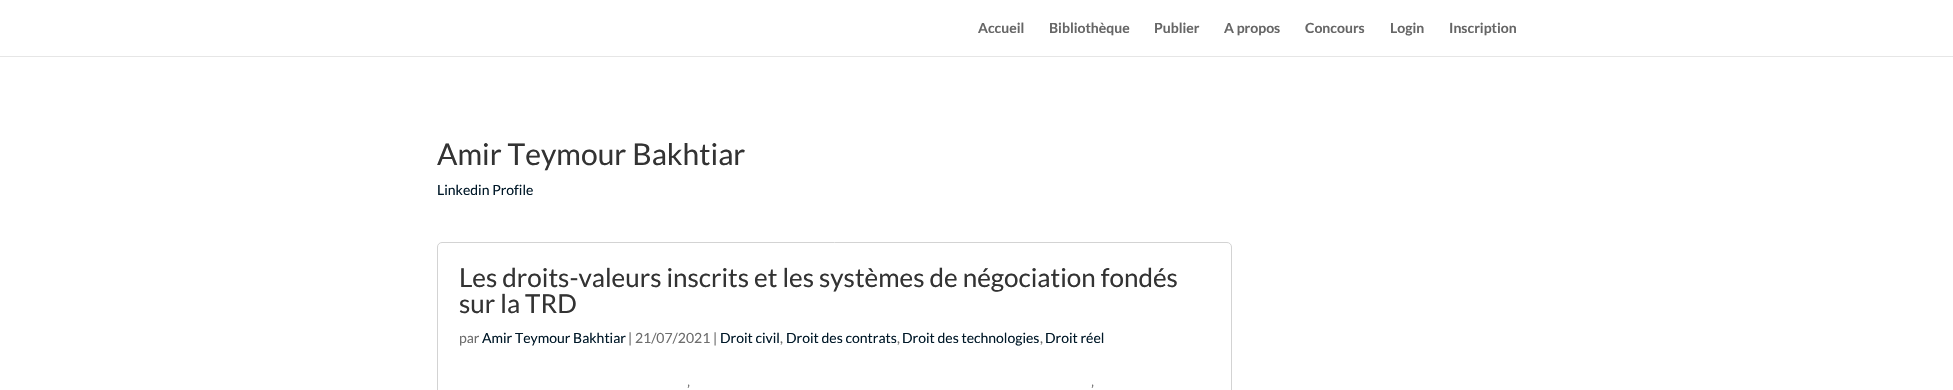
void draw(SkCanvas* canvas) {
	SkPaint fill;
	fill.setAntiAlias(true);
	auto makeFont = [&](const char* family, int weight, float size, bool italic = false) {
		SkFontStyle style(weight, SkFontStyle::kNormal_Width,
			italic ? SkFontStyle::kItalic_Slant : SkFontStyle::kUpright_Slant);
		SkFont result(fontMgr->matchFamilyStyle(family, style), size);
		result.setSubpixel(true);
		return result;
	};
	auto text = [&](const char* s, float x, float y, const SkFont& font) {
		canvas->drawString(s, x, y, font, fill);
	};
	auto box = [&](float l, float t, float r, float b) {
		canvas->drawRect(SkRect::MakeLTRB(l, t, r, b), fill);
	};
	canvas->clear(0xFFFFFFFF);
	fill.setColor(0xFFE6E6E6);
	box(0, 56, 1953, 57);
	fill.setStyle(SkPaint::kStroke_Style);
	fill.setStrokeWidth(1);
	fill.setColor(0xFFD3D3D3);
	canvas->drawRoundRect(SkRect::MakeLTRB(437.5f, 242.5f, 1231.5f, 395.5f), 4.5f, 4.5f, fill);
	auto font1 = makeFont("Lato", 700, 14);
	fill.setStyle(SkPaint::kFill_Style);
	fill.setColor(0xFF666666);
	text("Accueil", 978, 33, font1);
	text("Bibliothèque", 1049, 33, font1);
	text("Publier", 1154, 33, font1);
	text("A propos", 1224, 33, font1);
	text("Concours", 1305, 33, font1);
	text("Login", 1390, 33, font1);
	text("Inscription", 1449, 33, font1);
	auto font2 = makeFont("Lato", 400, 30);
	fill.setColor(0xFF333333);
	text("Amir Teymour Bakhtiar", 437, 165, font2);
	auto font3 = makeFont("Lato", 400, 14);
	fill.setColor(0xFF001828);
	text("Linkedin Profile", 437, 195, font3);
	auto font4 = makeFont("Lato", 400, 26);
	fill.setColor(0xFF333333);
	text("Les droits-valeurs inscrits et les systèmes de négociation fondés", 459, 287, font4);
	text("sur la TRD", 459, 313, font4);
	fill.setColor(0xFF6D6D6D);
	text("par", 459, 343, font3);
	fill.setColor(0xFF001828);
	text("Amir Teymour Bakhtiar", 482, 343, font3);
	fill.setColor(0xFF6D6D6D);
	text("| 21/07/2021 |", 628, 343, font3);
	fill.setColor(0xFF001828);
	text("Droit civil", 720, 343, font3);
	fill.setColor(0xFF6D6D6D);
	text(",", 780, 343, font3);
	fill.setColor(0xFF001828);
	text("Droit des contrats", 786, 343, font3);
	fill.setColor(0xFF6D6D6D);
	text(",", 897, 343, font3);
	fill.setColor(0xFF001828);
	text("Droit des technologies", 902, 343, font3);
	fill.setColor(0xFF6D6D6D);
	text(",", 1040, 343, font3);
	fill.setColor(0xFF001828);
	text("Droit réel", 1045, 343, font3);
	fill.setColor(0xFF6D6D6D);
	text("’", 687, 395, font3);
	text("’", 1091, 395, font3);
}
